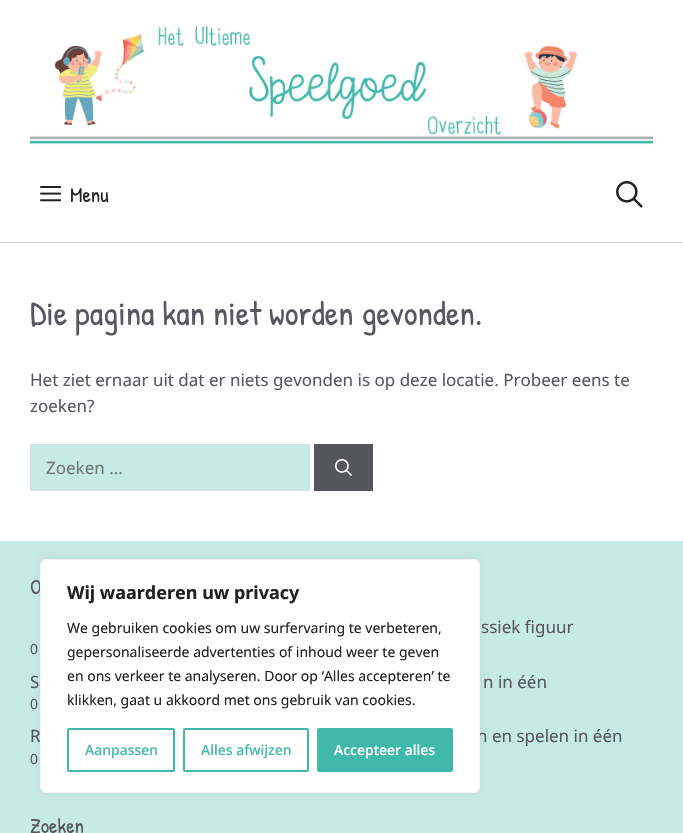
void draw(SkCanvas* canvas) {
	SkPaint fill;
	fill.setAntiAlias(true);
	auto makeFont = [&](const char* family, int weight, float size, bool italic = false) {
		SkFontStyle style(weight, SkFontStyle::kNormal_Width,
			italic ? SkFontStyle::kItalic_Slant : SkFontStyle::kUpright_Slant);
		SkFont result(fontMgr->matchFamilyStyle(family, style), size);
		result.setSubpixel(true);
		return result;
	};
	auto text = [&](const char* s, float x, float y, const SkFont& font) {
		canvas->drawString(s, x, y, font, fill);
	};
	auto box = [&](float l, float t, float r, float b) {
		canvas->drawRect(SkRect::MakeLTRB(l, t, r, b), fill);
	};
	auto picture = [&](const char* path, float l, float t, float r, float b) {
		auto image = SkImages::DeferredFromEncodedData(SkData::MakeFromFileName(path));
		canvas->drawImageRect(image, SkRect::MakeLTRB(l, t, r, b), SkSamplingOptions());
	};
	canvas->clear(0xFFFFFFFF);
	picture("image0.png", 30, 25, 653, 145);
	fill.setColor(0xFFCCCCCC);
	box(0, 242, 683, 243);
	picture("image1.png", 40, 186, 61, 202);
	picture("image2.png", 616, 181, 643, 208);
	fill.setColor(0xFFC6EAE5);
	canvas->drawRect(SkRect::MakeLTRB(30.5f, 444.5f, 309.5f, 490.5f), fill);
	fill.setStyle(SkPaint::kStroke_Style);
	fill.setStrokeWidth(1);
	fill.setColor(0xFFDBDBDB);
	canvas->drawRect(SkRect::MakeLTRB(30.5f, 444.5f, 309.5f, 490.5f), fill);
	fill.setStyle(SkPaint::kFill_Style);
	fill.setColor(0xFF55555E);
	box(314, 444, 373, 491);
	picture("image3.png", 335, 459, 352, 476);
	fill.setColor(0xFFC6EAE5);
	box(0, 541, 683, 833);
	fill.setColor(0x4DACABAB);
	fill.setMaskFilter(SkMaskFilter::MakeBlur(kNormal_SkBlurStyle, 5));
	canvas->drawRoundRect(SkRect::MakeLTRB(40, 558, 480, 792), 6, 6, fill);
	fill.setMaskFilter(nullptr);
	auto font1 = makeFont("Patrick Hand", 400, 21);
	fill.setColor(0xFF222222);
	text("Menu", 70, 202, font1);
	auto font2 = makeFont("Patrick Hand", 400, 34);
	fill.setColor(0xFF575760);
	text("Die pagina kan niet worden gevonden.", 30, 325, font2);
	auto font3 = makeFont("Noto Sans", 400, 17);
	text("Het ziet ernaar uit dat er niets gevonden is op deze locatie. Probeer eens te", 30, 386, font3);
	text("zoeken?", 30, 412, font3);
	fill.setColor(0xFF757575);
	text("Zoeken …", 46, 474, font3);
	fill.setColor(0xFF575760);
	text("O", 30, 594, font1);
	text("ssiek figuur", 481, 633, font3);
	auto font4 = makeFont("Noto Sans", 400, 14);
	text("0", 30, 654, font4);
	text("S", 30, 688, font3);
	text("n in één", 483, 688, font3);
	text("0", 30, 709, font4);
	text("R", 30, 742, font3);
	text("n en spelen in één", 477, 742, font3);
	text("0", 30, 764, font4);
	text("Zoeken", 30, 833, font1);
	fill.setColor(0xFFFFFFFF);
	canvas->drawRoundRect(SkRect::MakeLTRB(40.5f, 559.5f, 479.5f, 792.5f), 5.5f, 5.5f, fill);
	fill.setStyle(SkPaint::kStroke_Style);
	fill.setColor(0xFFF4F4F4);
	canvas->drawRoundRect(SkRect::MakeLTRB(40.5f, 559.5f, 479.5f, 792.5f), 5.5f, 5.5f, fill);
	auto font5 = makeFont("Noto Sans", 700, 18);
	fill.setStyle(SkPaint::kFill_Style);
	fill.setColor(0xFF222222);
	text("Wij waarderen uw privacy", 67, 599, font5);
	text("We gebruiken cookies om uw surfervaring te verbeteren,", 67, 633, font4);
	text("gepersonaliseerde advertenties of inhoud weer te geven", 67, 657, font4);
	text("en ons verkeer te analyseren. Door op ‘Alles accepteren’ te", 67, 681, font4);
	text("klikken, gaat u akkoord met ons gebruik van cookies.", 67, 705, font4);
	fill.setStyle(SkPaint::kStroke_Style);
	fill.setStrokeWidth(2);
	fill.setColor(0xFF40B8AA);
	canvas->drawRoundRect(SkRect::MakeLTRB(68, 729, 174, 771), 1, 1, fill);
	auto font6 = makeFont("Noto Sans", 500, 14);
	fill.setStyle(SkPaint::kFill_Style);
	text("Aanpassen", 85, 755, font6);
	fill.setStyle(SkPaint::kStroke_Style);
	canvas->drawRoundRect(SkRect::MakeLTRB(184, 729, 308, 771), 1, 1, fill);
	fill.setStyle(SkPaint::kFill_Style);
	text("Alles afwijzen", 201, 755, font6);
	canvas->drawRoundRect(SkRect::MakeLTRB(318, 729, 452, 771), 1, 1, fill);
	fill.setStyle(SkPaint::kStroke_Style);
	canvas->drawRoundRect(SkRect::MakeLTRB(318, 729, 452, 771), 1, 1, fill);
	fill.setStyle(SkPaint::kFill_Style);
	fill.setColor(0xFFFFFFFF);
	text("Accepteer alles", 334, 755, font6);
}
